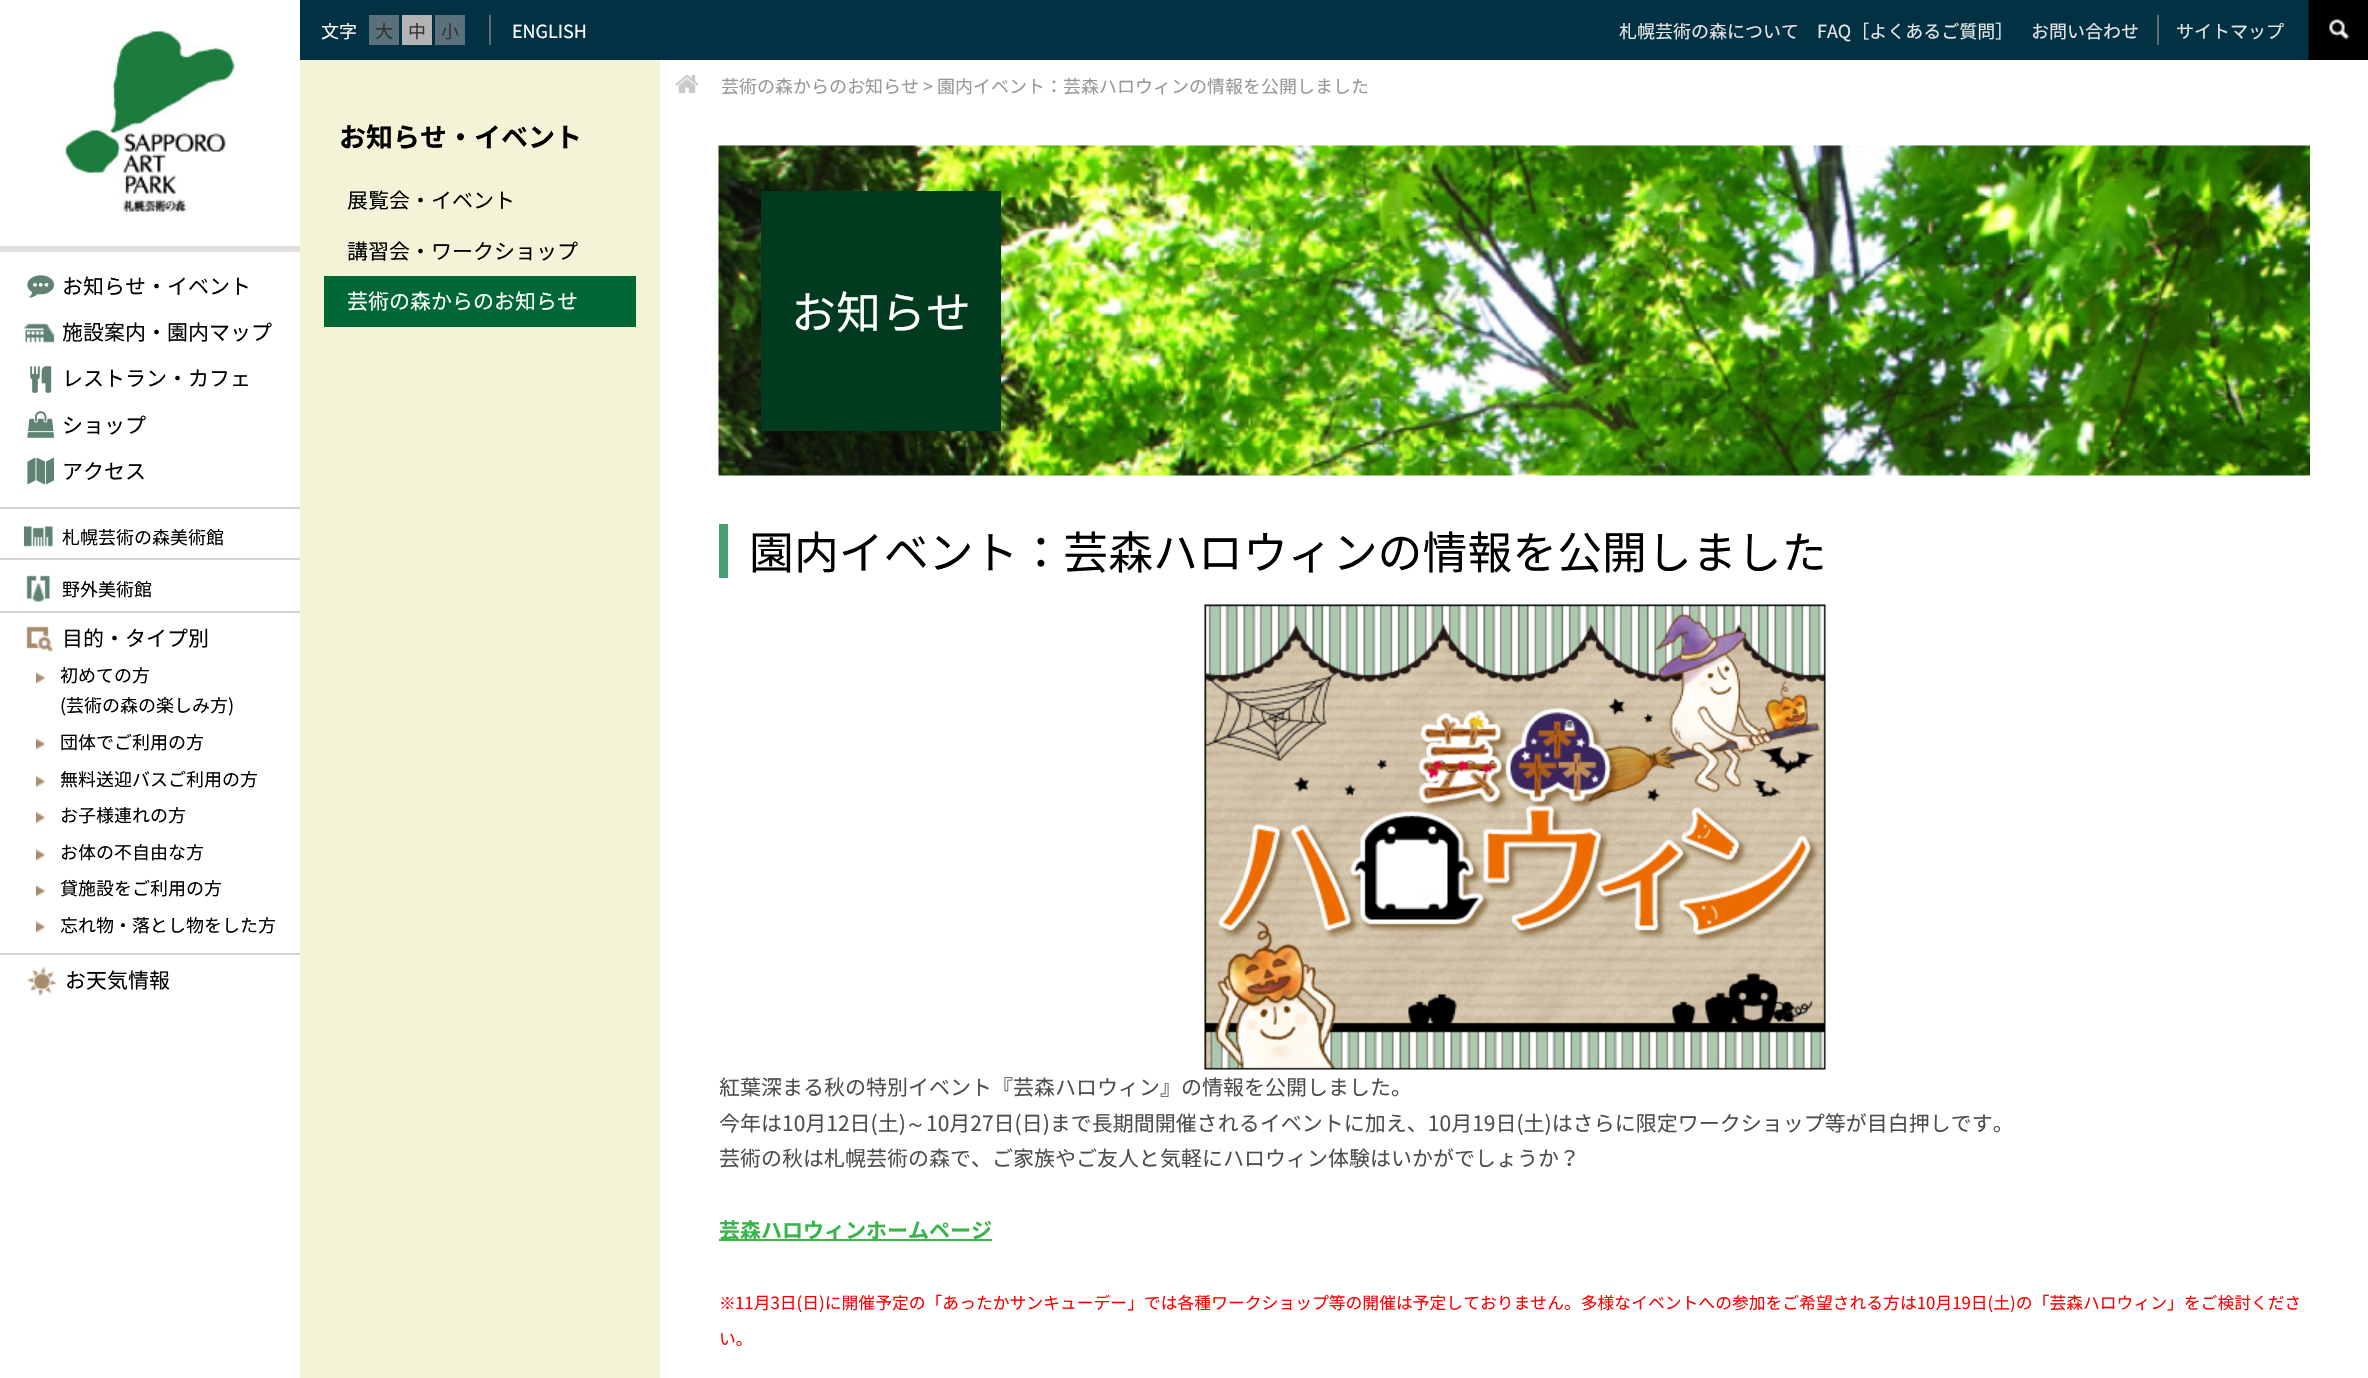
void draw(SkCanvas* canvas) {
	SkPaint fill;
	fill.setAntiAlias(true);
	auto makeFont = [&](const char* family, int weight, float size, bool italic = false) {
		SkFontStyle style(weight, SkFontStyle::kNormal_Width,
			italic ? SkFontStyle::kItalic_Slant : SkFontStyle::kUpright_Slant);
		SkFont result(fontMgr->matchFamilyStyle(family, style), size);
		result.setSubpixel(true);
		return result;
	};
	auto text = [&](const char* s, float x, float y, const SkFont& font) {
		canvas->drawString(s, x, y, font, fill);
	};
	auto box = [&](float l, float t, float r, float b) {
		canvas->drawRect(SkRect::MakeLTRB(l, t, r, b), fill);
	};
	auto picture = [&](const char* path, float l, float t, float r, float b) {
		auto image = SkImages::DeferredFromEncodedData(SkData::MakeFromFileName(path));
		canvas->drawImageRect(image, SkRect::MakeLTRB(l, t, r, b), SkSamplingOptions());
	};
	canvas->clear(0xFFFFFFFF);
	fill.setColor(0xFF013142);
	box(300, 0, 2309, 60);
	fill.setColor(0xFF5A717B);
	box(369, 15, 399, 45);
	fill.setColor(0xFFB3B3B3);
	box(402, 15, 432, 45);
	fill.setColor(0xFF5A717B);
	box(435, 15, 465, 45);
	fill.setColor(0xFF5C6D75);
	box(489, 15, 491, 45);
	box(2157, 15, 2159, 45);
	fill.setColor(0xFF010101);
	box(2350, 0, 2368, 60);
	picture("image0.png", 2308, 0, 2350, 60);
	fill.setColor(0xFFE2DFDD);
	box(0, 246, 300, 252);
	picture("image1.png", 59, 31, 238, 214);
	fill.setColor(0xFFD4D4D4);
	box(0, 611, 300, 613);
	picture("image2.png", 27, 275, 54, 298);
	fill.setColor(0xFFF3F3D8);
	box(300, 60, 660, 1378);
	fill.setColor(0xFF006837);
	box(324, 276, 636, 327);
	picture("image3.png", 24, 323, 54, 343);
	picture("image4.png", 30, 366, 52, 393);
	picture("image5.png", 27, 411, 54, 438);
	picture("image6.png", 27, 457, 54, 485);
	fill.setColor(0xFFD4D4D4);
	box(0, 507, 300, 509);
	picture("image7.png", 24, 526, 53, 547);
	box(0, 558, 300, 560);
	picture("image8.png", 26, 575, 50, 602);
	picture("image9.png", 26, 626, 53, 652);
	picture("image10.png", 36, 672, 45, 684);
	picture("image10.png", 36, 738, 45, 750);
	picture("image11.png", 36, 775, 45, 788);
	picture("image11.png", 36, 811, 45, 824);
	picture("image10.png", 36, 849, 45, 861);
	picture("image10.png", 36, 885, 45, 897);
	picture("image10.png", 36, 921, 45, 933);
	box(0, 953, 300, 955);
	picture("image12.png", 27, 967, 57, 996);
	picture("image13.png", 675, 75, 699, 94);
	picture("image14.png", 718, 145, 2310, 476);
	fill.setColor(0xFF003B1F);
	box(761, 191, 1001, 431);
	fill.setColor(0xFF45A171);
	box(719, 524, 728, 578);
	picture("image15.png", 1204, 604, 1826, 1070);
	fill.setColor(0xFF39B44A);
	box(719, 1239, 992, 1241);
	auto font1 = makeFont("Noto Sans JP", 400, 18);
	fill.setColor(0xFFFFFFFF);
	text("文字", 321, 38, font1);
	fill.setColor(0xFF333333);
	text("大", 375, 38, font1);
	text("中", 408, 38, font1);
	text("小", 441, 38, font1);
	fill.setColor(0xFFFFFFFF);
	text("ENGLISH", 512, 38, font1);
	fill.setColor(0xFFE6E6E6);
	text("札幌芸術の森について", 1619, 38, font1);
	text("FAQ［よくあるご質問］", 1817, 38, font1);
	text("お問い合わせ", 2031, 38, font1);
	text("サイトマップ", 2176, 38, font1);
	auto font2 = makeFont("Noto Sans JP", 400, 21);
	fill.setColor(0xFF000000);
	text("お知らせ・イベント", 62, 294, font2);
	auto font3 = makeFont("Noto Sans JP", 700, 27);
	text("お知らせ・イベント", 339, 147, font3);
	text("展覧会・イベント", 347, 208, font2);
	text("講習会・ワークショップ", 347, 259, font2);
	fill.setColor(0xFFFFFFFF);
	text("芸術の森からのお知らせ", 347, 309, font2);
	fill.setColor(0xFF000000);
	text("施設案内・園内マップ", 62, 340, font2);
	text("レストラン・カフェ", 62, 386, font2);
	text("ショップ", 62, 433, font2);
	text("アクセス", 62, 479, font2);
	text("札幌芸術の森美術館", 62, 544, font1);
	text("野外美術館", 62, 596, font1);
	text("目的・タイプ別", 62, 646, font2);
	text("初めての方", 60, 682, font1);
	text("(芸術の森の楽しみ方)", 60, 712, font1);
	text("団体でご利用の方", 60, 749, font1);
	text("無料送迎バスご利用の方", 60, 786, font1);
	text("お子様連れの方", 60, 822, font1);
	text("お体の不自由な方", 60, 859, font1);
	text("貸施設をご利用の方", 60, 895, font1);
	text("忘れ物・落とし物をした方", 60, 932, font1);
	text("お天気情報", 65, 988, font2);
	fill.setColor(0xFF989898);
	text("芸術の森からのお知らせ > 園内イベント：芸森ハロウィンの情報を公開しました", 721, 93, font1);
	auto font4 = makeFont("Noto Sans JP", 400, 45);
	fill.setColor(0xFFFFFFFF);
	text("お知らせ", 791, 329, font4);
	auto font5 = makeFont("Noto Sans JP", 400, 44.9f);
	fill.setColor(0xFF000000);
	text("園内イベント：芸森ハロウィンの情報を公開しました", 749, 569, font5);
	fill.setColor(0xFF4D4D4D);
	text("紅葉深まる秋の特別イベント『芸森ハロウィン』の情報を公開しました。", 719, 1095, font2);
	text("今年は10月12日(土)", 719, 1131, font2);
	auto font6 = makeFont("WenQuanYi Zen Hei", 500, 21);
	text("～", 905, 1131, font6);
	text("10月27日(日)まで長期間開催されるイベントに加え、10月19日(土)はさらに限定ワークショップ等が目白押しです。", 926, 1131, font2);
	text("芸術の秋は札幌芸術の森で、ご家族やご友人と気軽にハロウィン体験はいかがでしょうか？", 719, 1166, font2);
	auto font7 = makeFont("Noto Sans JP", 700, 21);
	fill.setColor(0xFF39B44A);
	text("芸森ハロウィンホームページ", 719, 1238, font7);
	auto font8 = makeFont("WenQuanYi Zen Hei", 500, 16.8f);
	fill.setColor(0xFFFF0000);
	text("※", 719, 1309, font8);
	auto font9 = makeFont("Noto Sans JP", 400, 16.8f);
	text("11月3日(日)に開催予定の「あったかサンキューデー」では各種ワークショップ等の開催は予定しておりません。多様なイベントへの参加をご希望される方は10月19日(土)の「芸森ハロウィン」をご検討くださ", 735, 1309, font9);
	text("い。", 719, 1345, font9);
}
